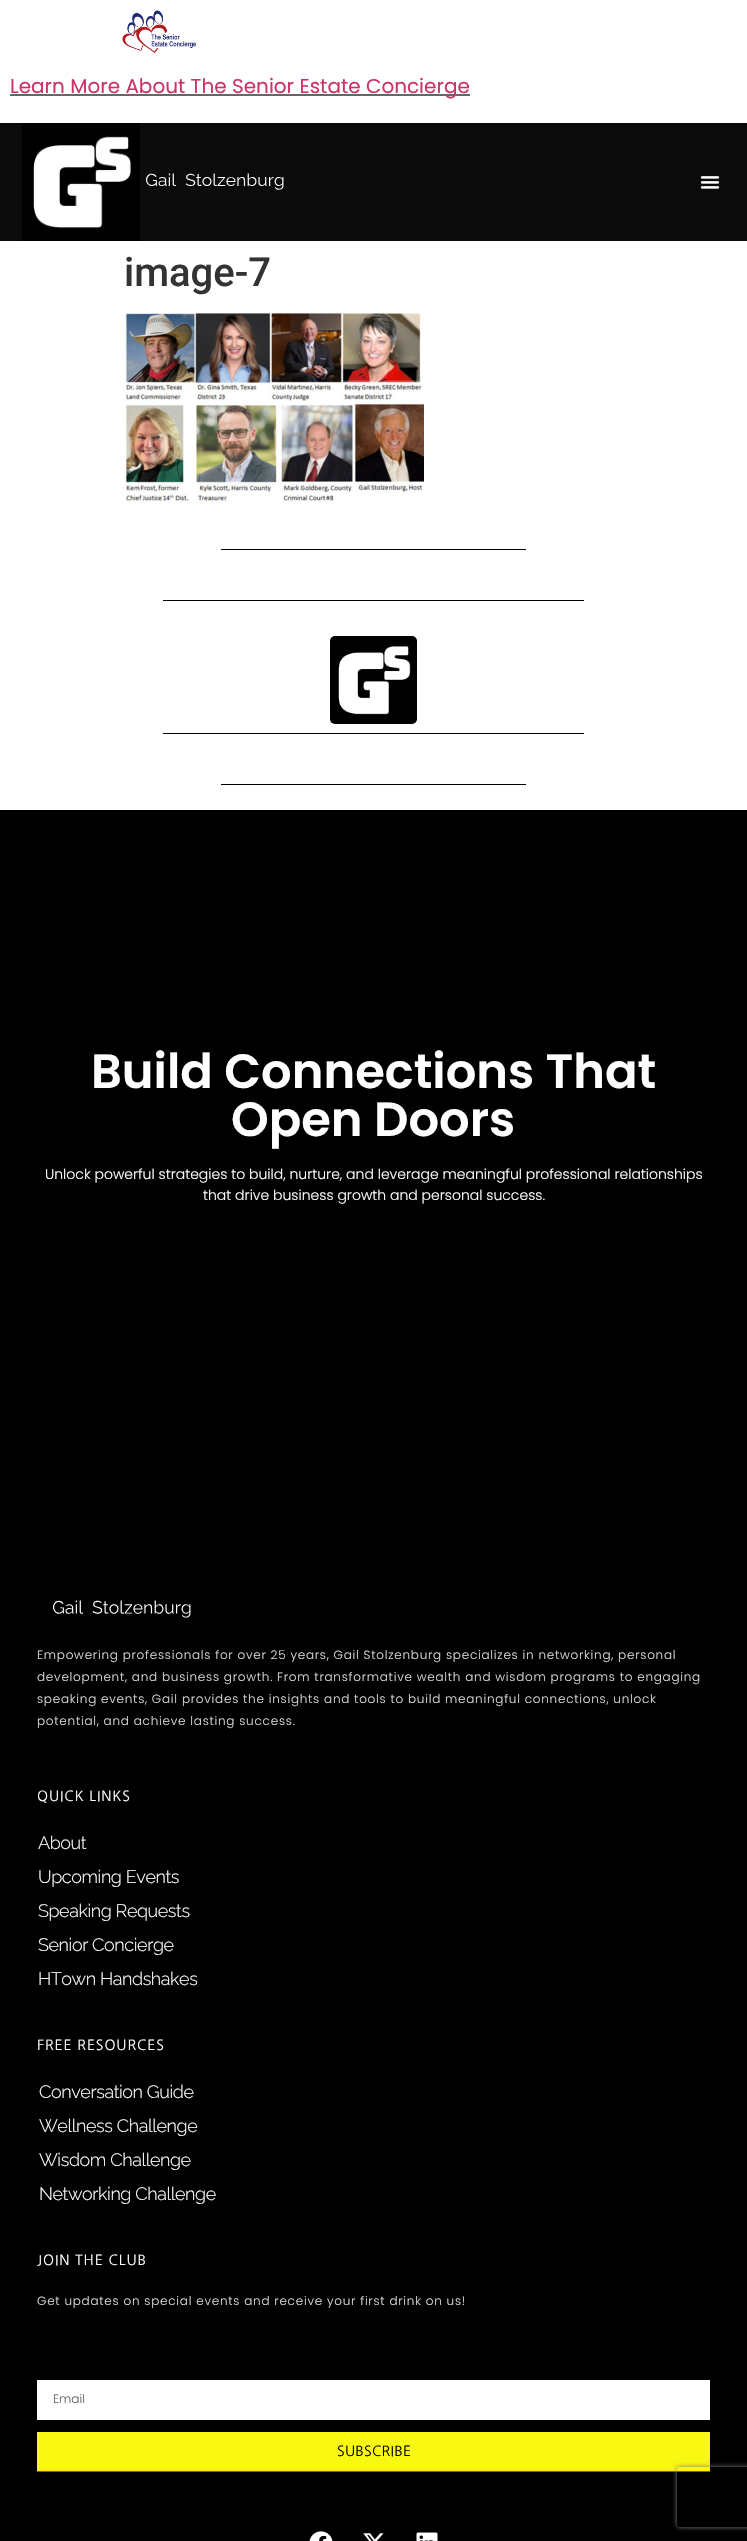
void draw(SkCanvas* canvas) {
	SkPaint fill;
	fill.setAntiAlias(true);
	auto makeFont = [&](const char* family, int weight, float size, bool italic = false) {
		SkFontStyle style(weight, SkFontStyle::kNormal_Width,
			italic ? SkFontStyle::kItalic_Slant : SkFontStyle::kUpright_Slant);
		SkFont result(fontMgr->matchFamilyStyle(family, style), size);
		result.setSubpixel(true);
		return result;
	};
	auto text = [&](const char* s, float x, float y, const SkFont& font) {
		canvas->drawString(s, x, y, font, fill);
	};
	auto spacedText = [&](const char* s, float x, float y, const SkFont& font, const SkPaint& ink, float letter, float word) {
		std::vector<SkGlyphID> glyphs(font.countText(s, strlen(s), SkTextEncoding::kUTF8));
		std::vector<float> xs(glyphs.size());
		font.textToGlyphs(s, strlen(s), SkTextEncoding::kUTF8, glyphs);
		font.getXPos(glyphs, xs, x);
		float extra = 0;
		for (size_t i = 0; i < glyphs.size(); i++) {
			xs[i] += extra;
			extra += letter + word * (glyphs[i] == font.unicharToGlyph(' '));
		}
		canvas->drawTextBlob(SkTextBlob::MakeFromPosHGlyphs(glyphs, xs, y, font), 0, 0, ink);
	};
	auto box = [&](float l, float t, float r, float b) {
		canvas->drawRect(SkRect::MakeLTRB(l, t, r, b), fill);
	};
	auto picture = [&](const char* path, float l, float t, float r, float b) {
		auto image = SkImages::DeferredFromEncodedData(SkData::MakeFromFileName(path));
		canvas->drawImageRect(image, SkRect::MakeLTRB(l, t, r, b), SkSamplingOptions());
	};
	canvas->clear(0xFFFFFFFF);
	picture("image0.png", 122, 10, 197, 53);
	fill.setColor(0xFF666666);
	box(10, 94, 470, 96);
	fill.setColor(0xFF0B0B0B);
	box(0, 123, 747, 241);
	picture("image1.png", 22, 123, 140, 241);
	picture("image2.png", 145, 173, 284, 190);
	picture("image3.png", 700, 176, 720, 189);
	picture("image4.png", 124, 313, 424, 503);
	fill.setColor(0xFF000000);
	box(0, 810, 747, 2541);
	box(221, 549, 526, 550);
	box(163, 600, 584, 601);
	picture("image5.png", 330, 636, 417, 724);
	box(163, 733, 584, 734);
	box(221, 784, 526, 785);
	picture("image6.png", 53, 1600, 191, 1618);
	fill.setColor(0xFFFFFFFF);
	box(37, 2380, 710, 2420);
	fill.setColor(0xFFF8F812);
	box(37, 2432, 710, 2471);
	fill.setColor(0xFFCB3522);
	box(37, 2471, 710, 2472);
	canvas->save();
	canvas->clipPath(SkPathBuilder(SkPathFillType::kEvenOdd).moveTo(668, 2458).lineTo(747, 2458).lineTo(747, 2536).lineTo(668, 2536).close().moveTo(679, 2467).lineTo(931, 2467).cubicTo(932, 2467, 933, 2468, 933, 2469).lineTo(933, 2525).cubicTo(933, 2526, 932, 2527, 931, 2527).lineTo(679, 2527).cubicTo(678, 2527, 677, 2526, 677, 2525).lineTo(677, 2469).cubicTo(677, 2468, 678, 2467, 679, 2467).close().detach(), true);
	fill.setColor(0xFF808080);
	fill.setMaskFilter(SkMaskFilter::MakeBlur(kNormal_SkBlurStyle, 2.5f));
	canvas->drawRoundRect(SkRect::MakeLTRB(677, 2467, 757, 2527), 2, 2, fill);
	fill.setMaskFilter(nullptr);
	canvas->restore();
	picture("image7.png", 309, 2531, 333, 2541);
	picture("image8.png", 363, 2533, 384, 2541);
	picture("image9.png", 416, 2532, 438, 2541);
	auto font1 = makeFont("Poppins", 400, 20);
	fill.setColor(0xFFCC3366);
	text("Learn More About The Senior Estate Concierge", 10, 93, font1);
	auto font2 = makeFont("Roboto", 500, 40);
	fill.setColor(0xFF333333);
	text("image-7", 124, 286, font2);
	auto font3 = makeFont("Poppins", 600, 48);
	fill.setColor(0xFFFFFFFF);
	text("Build Connections That", 91, 1088, font3);
	text("Open Doors", 231, 1136, font3);
	auto font4 = makeFont("Poppins", 300, 14);
	text("Unlock powerful strategies to build, nurture, and leverage meaningful professional relationships", 45, 1179, font4);
	text("that drive business growth and personal success.", 203, 1200, font4);
	auto font5 = makeFont("Poppins", 300, 12);
	fill.setColor(0xFFDADADA);
	spacedText("Empowering professionals for over 25 years, Gail Stolzenburg specializes in networking, personal", 37, 1659, font5, fill, 0.75f, 0);
	spacedText("development, and business growth. From transformative wealth and wisdom programs to engaging", 37, 1681, font5, fill, 0.75f, 0);
	spacedText("speaking events, Gail provides the insights and tools to build meaningful connections, unlock", 37, 1703, font5, fill, 0.75f, 0);
	spacedText("potential, and achieve lasting success.", 37, 1725, font5, fill, 0.75f, 0);
	auto font6 = makeFont("NanumGothic", 400, 14);
	fill.setColor(0xFFFFFFFF);
	spacedText("QUICK LINKS", 37, 1801, font6, fill, 0.9f, 0);
	auto font7 = makeFont("Raleway", 300, 18);
	spacedText("About", 38, 1849, font7, fill, -0.4f, 0);
	spacedText("Upcoming Events", 38, 1883, font7, fill, -0.4f, 0);
	spacedText("Speaking Requests", 38, 1917, font7, fill, -0.4f, 0);
	spacedText("Senior Concierge", 38, 1951, font7, fill, -0.4f, 0);
	spacedText("HTown Handshakes", 38, 1985, font7, fill, -0.4f, 0);
	spacedText("FREE RESOURCES", 37, 2050, font6, fill, 0.9f, 0);
	spacedText("Conversation Guide", 39, 2098, font7, fill, -0.4f, 0);
	spacedText("Wellness Challenge", 39, 2132, font7, fill, -0.4f, 0);
	spacedText("Wisdom Challenge", 39, 2166, font7, fill, -0.4f, 0);
	spacedText("Networking Challenge", 39, 2200, font7, fill, -0.4f, 0);
	spacedText("JOIN THE CLUB", 37, 2265, font6, fill, 0.9f, 0);
	fill.setColor(0xFFDADADA);
	spacedText("Get updates on special events and receive your first drink on us!", 37, 2305, font5, fill, 0.75f, 0);
	fill.setColor(0xFF666666);
	text("Email", 53, 2403, font5);
	fill.setColor(0xFF000000);
	spacedText("SUBSCRIBE", 337, 2456, font6, fill, 0.25f, 0);
}
